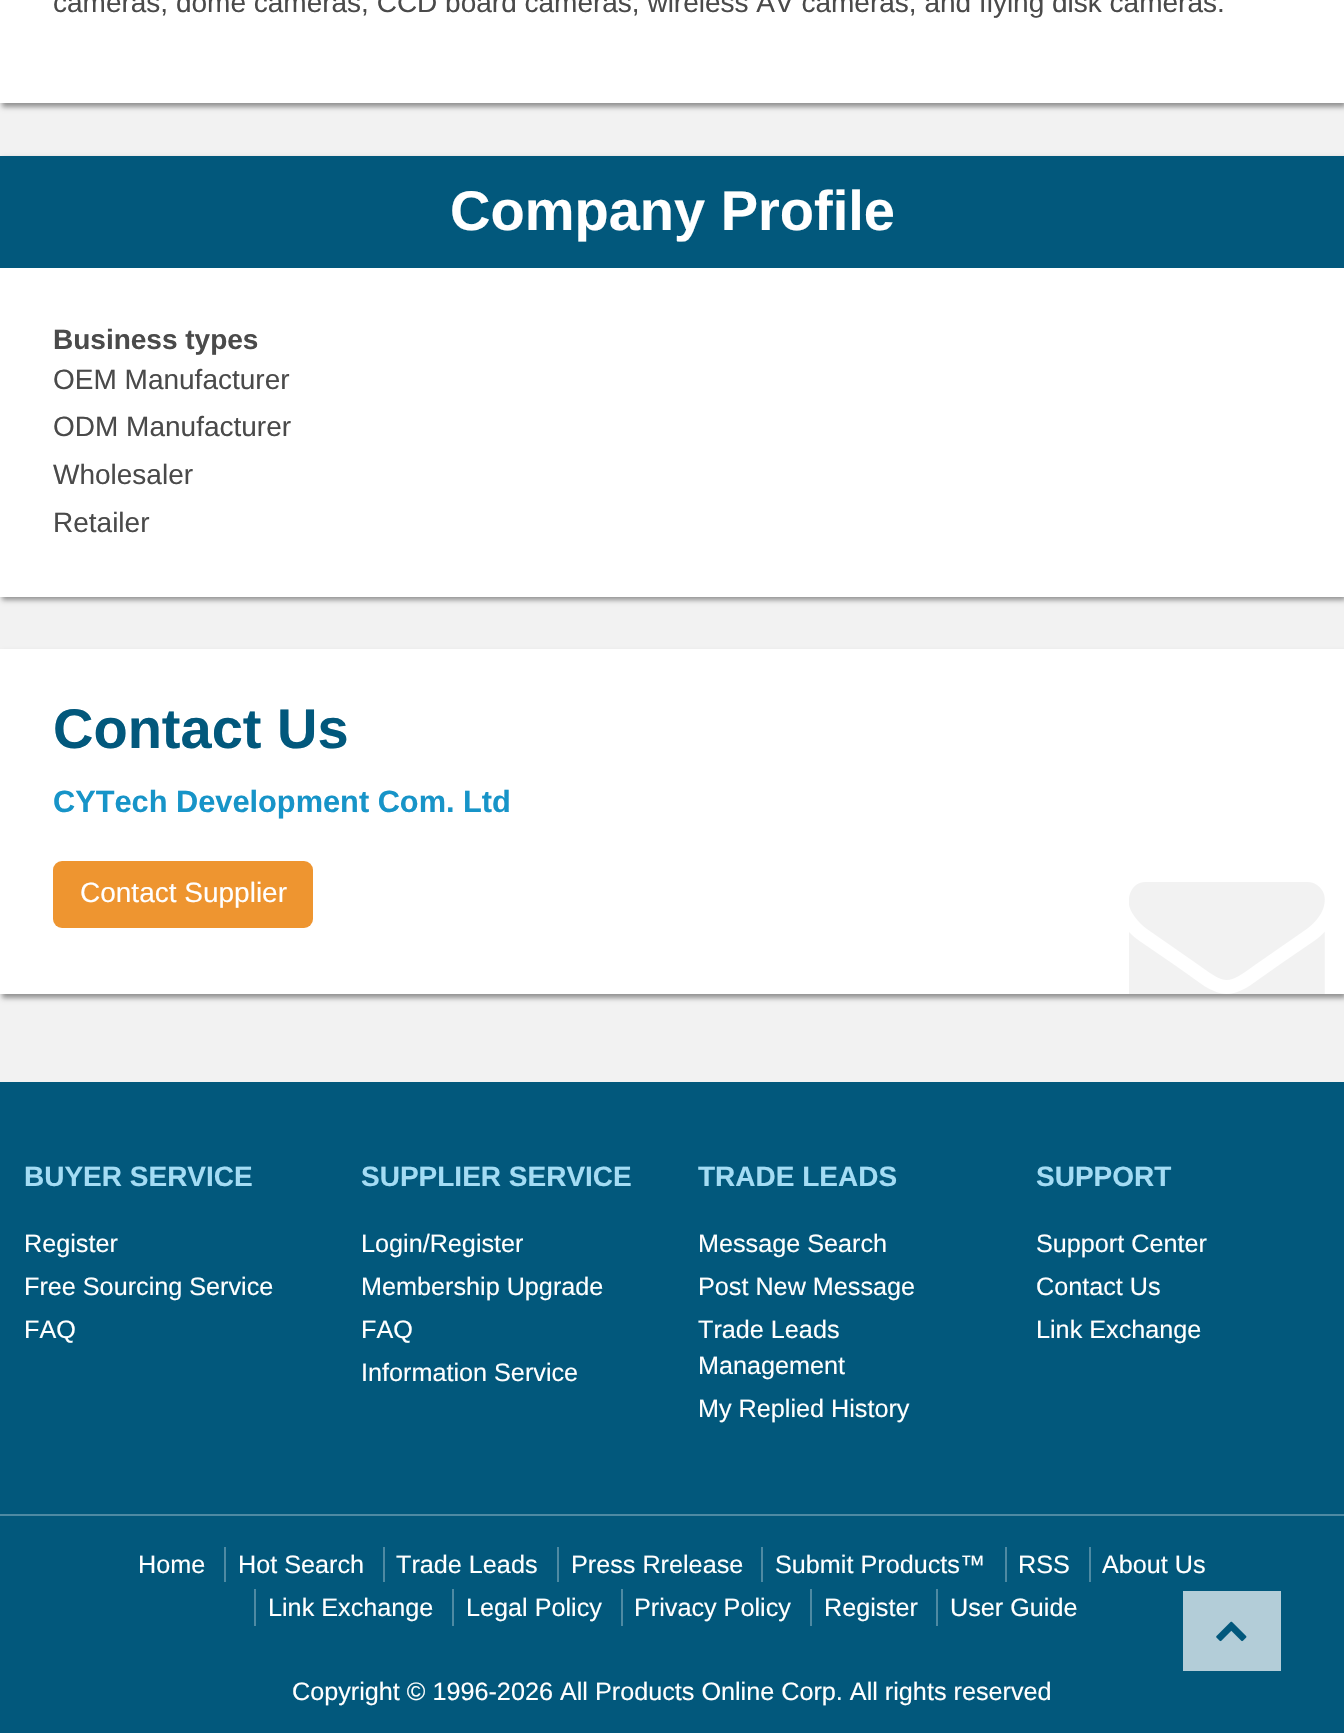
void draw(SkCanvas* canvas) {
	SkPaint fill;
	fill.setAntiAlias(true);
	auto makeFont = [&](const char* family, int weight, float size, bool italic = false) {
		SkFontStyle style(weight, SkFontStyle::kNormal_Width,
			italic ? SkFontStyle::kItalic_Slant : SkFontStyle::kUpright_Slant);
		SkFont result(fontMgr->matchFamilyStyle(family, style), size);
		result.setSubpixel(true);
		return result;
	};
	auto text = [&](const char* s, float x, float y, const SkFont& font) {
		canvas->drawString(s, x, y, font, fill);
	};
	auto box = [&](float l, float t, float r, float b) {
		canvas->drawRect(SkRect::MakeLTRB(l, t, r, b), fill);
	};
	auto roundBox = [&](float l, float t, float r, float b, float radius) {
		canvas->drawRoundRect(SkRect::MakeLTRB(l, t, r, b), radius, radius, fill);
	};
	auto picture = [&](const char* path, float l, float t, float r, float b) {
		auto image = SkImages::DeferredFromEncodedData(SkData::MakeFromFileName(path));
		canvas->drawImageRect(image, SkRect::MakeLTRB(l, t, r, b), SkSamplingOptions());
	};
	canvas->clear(0xFFF2F2F2);
	fill.setColor(0x66000000);
	fill.setMaskFilter(SkMaskFilter::MakeBlur(kNormal_SkBlurStyle, 2.5f));
	canvas->drawRect(SkRect::MakeLTRB(2, -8, 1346, 107), fill);
	fill.setMaskFilter(nullptr);
	fill.setColor(0xFFFFFFFF);
	box(0, 0, 1344, 103);
	fill.setColor(0x66000000);
	fill.setMaskFilter(SkMaskFilter::MakeBlur(kNormal_SkBlurStyle, 2.5f));
	canvas->drawRect(SkRect::MakeLTRB(2, 159, 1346, 600), fill);
	fill.setMaskFilter(nullptr);
	fill.setColor(0xFFFFFFFF);
	box(0, 268, 1344, 597);
	fill.setColor(0xFF02587C);
	box(0, 156, 1344, 268);
	fill.setColor(0x66000000);
	fill.setMaskFilter(SkMaskFilter::MakeBlur(kNormal_SkBlurStyle, 2.5f));
	canvas->drawRect(SkRect::MakeLTRB(2, 653, 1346, 998), fill);
	fill.setMaskFilter(nullptr);
	fill.setColor(0xFFFFFFFF);
	box(0, 649, 1344, 994);
	fill.setColor(0xFFEE9530);
	roundBox(53, 861, 313, 928, 9);
	picture("image0.png", 1129, 882, 1325, 994);
	fill.setColor(0xFF02587C);
	box(0, 1082, 1344, 1733);
	fill.setColor(0xFF4E8AA3);
	box(0, 1514, 1344, 1516);
	box(224, 1547, 226, 1582);
	box(383, 1547, 385, 1582);
	box(557, 1547, 559, 1582);
	box(761, 1547, 763, 1582);
	box(1005, 1547, 1007, 1582);
	box(1089, 1547, 1091, 1582);
	box(254, 1589, 256, 1626);
	box(452, 1589, 454, 1626);
	box(621, 1589, 623, 1626);
	box(810, 1589, 812, 1626);
	box(936, 1589, 938, 1626);
	fill.setColor(0xFFB3CDD8);
	box(1183, 1591, 1281, 1671);
	picture("image1.png", 1216, 1621, 1247, 1642);
	auto font1 = makeFont("Liberation Sans", 400, 28);
	fill.setColor(0xFF4A4A4A);
	text("cameras, dome cameras, CCD board cameras, wireless AV cameras, and flying disk cameras.", 53, 12, font1);
	auto font2 = makeFont("Liberation Sans", 700, 56);
	fill.setColor(0xFFFFFFFF);
	text("Company Profile", 450, 230, font2);
	auto font3 = makeFont("Liberation Sans", 700, 28);
	fill.setColor(0xFF4A4A4A);
	text("Business types", 53, 349, font3);
	text("OEM Manufacturer", 53, 389, font1);
	text("ODM Manufacturer", 53, 436, font1);
	text("Wholesaler", 53, 484, font1);
	text("Retailer", 53, 532, font1);
	fill.setColor(0xFF02587C);
	text("Contact Us", 53, 748, font2);
	auto font4 = makeFont("Liberation Sans", 700, 30.75f);
	fill.setColor(0xFF1794C8);
	text("CYTech Development Com. Ltd", 53, 812, font4);
	fill.setColor(0xFFFFFFFF);
	text("Contact Supplier", 80, 902, font1);
	fill.setColor(0xFFA4DCF4);
	text("BUYER SERVICE", 24, 1186, font3);
	auto font5 = makeFont("Liberation Sans", 400, 25.2f);
	fill.setColor(0xFFFFFFFF);
	text("Register", 24, 1252, font5);
	text("Free Sourcing Service", 24, 1295, font5);
	text("FAQ", 24, 1338, font5);
	fill.setColor(0xFFA4DCF4);
	text("SUPPLIER SERVICE", 361, 1186, font3);
	fill.setColor(0xFFFFFFFF);
	text("Login/Register", 361, 1252, font5);
	text("Membership Upgrade", 361, 1295, font5);
	text("FAQ", 361, 1338, font5);
	text("Information Service", 361, 1381, font5);
	fill.setColor(0xFFA4DCF4);
	text("TRADE LEADS", 698, 1186, font3);
	fill.setColor(0xFFFFFFFF);
	text("Message Search", 698, 1252, font5);
	text("Post New Message", 698, 1295, font5);
	text("Trade Leads", 698, 1338, font5);
	text("Management", 698, 1374, font5);
	text("My Replied History", 698, 1417, font5);
	fill.setColor(0xFFA4DCF4);
	text("SUPPORT", 1036, 1186, font3);
	fill.setColor(0xFFFFFFFF);
	text("Support Center", 1036, 1252, font5);
	text("Contact Us", 1036, 1295, font5);
	text("Link Exchange", 1036, 1338, font5);
	text("Home", 138, 1573, font5);
	text("Hot Search", 238, 1573, font5);
	text("Trade Leads", 396, 1573, font5);
	text("Press Rrelease", 571, 1573, font5);
	text("Submit Products™", 775, 1573, font5);
	text("RSS", 1018, 1573, font5);
	text("About Us", 1102, 1573, font5);
	text("Link Exchange", 268, 1616, font5);
	text("Legal Policy", 466, 1616, font5);
	text("Privacy Policy", 634, 1616, font5);
	text("Register", 824, 1616, font5);
	text("User Guide", 950, 1616, font5);
	text("Copyright © 1996-2026 All Products Online Corp. All rights reserved", 292, 1700, font5);
}
